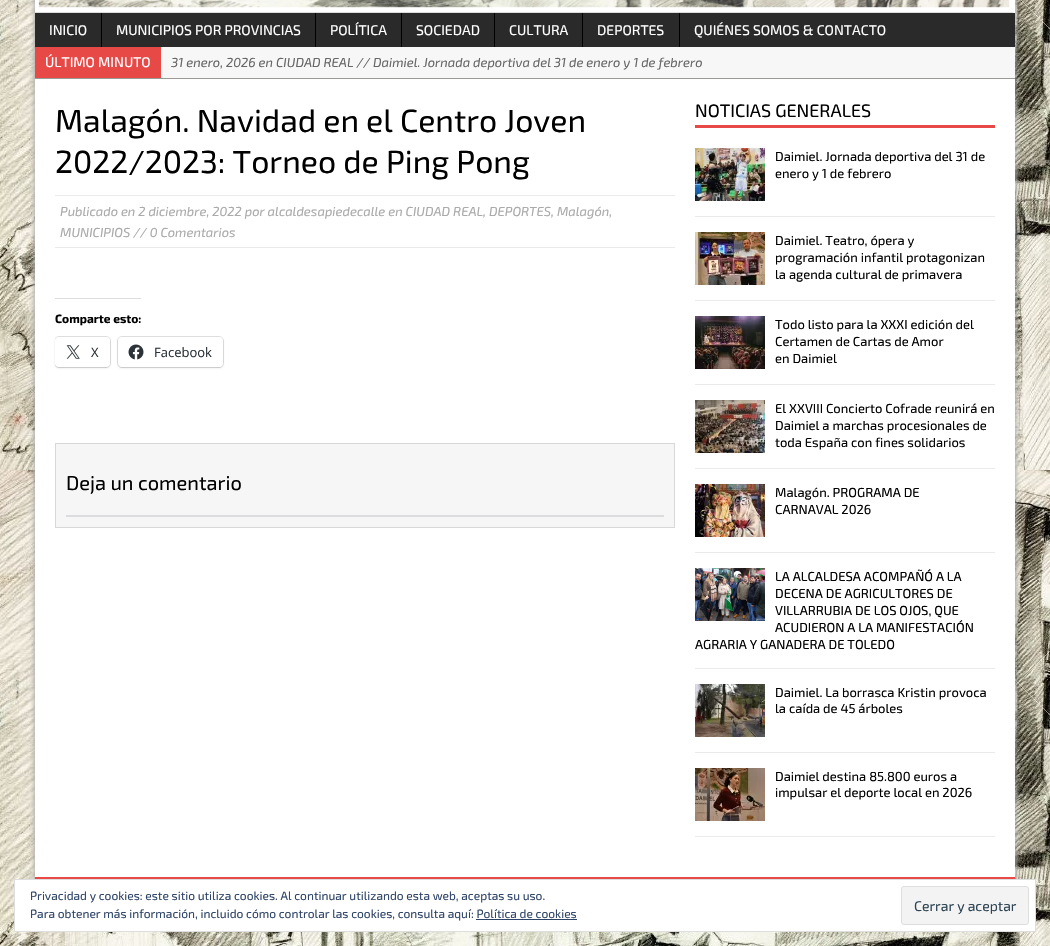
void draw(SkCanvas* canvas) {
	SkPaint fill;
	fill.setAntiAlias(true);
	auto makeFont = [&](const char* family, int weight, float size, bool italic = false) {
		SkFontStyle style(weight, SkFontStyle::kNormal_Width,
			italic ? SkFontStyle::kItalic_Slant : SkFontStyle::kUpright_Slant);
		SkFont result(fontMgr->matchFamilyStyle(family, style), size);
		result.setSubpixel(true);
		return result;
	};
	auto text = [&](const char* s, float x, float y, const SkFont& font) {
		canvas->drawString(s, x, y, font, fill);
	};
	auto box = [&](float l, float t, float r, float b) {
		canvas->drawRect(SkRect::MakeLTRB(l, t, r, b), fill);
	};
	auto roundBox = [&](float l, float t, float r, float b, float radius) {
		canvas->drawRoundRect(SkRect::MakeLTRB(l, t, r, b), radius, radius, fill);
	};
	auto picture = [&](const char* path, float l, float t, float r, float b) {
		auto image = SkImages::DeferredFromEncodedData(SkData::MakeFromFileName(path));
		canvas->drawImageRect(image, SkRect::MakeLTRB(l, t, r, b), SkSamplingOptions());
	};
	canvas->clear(0xFFFFFFFF);
	picture("image0.png", 0, 0, 1050, 946);
	fill.setColor(0xFFA8A8A8);
	fill.setMaskFilter(SkMaskFilter::MakeBlur(kNormal_SkBlurStyle, 2.5f));
	canvas->drawRect(SkRect::MakeLTRB(34, -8, 1016, 927), fill);
	fill.setMaskFilter(nullptr);
	fill.setColor(0xFFFFFFFF);
	box(1014, 0, 1015, 13);
	picture("image1.png", 35, 0, 1014, 13);
	fill.setColor(0xFF2A2A2A);
	box(35, 13, 1015, 47);
	fill.setColor(0xFF000000);
	box(101, 13, 102, 47);
	box(315, 13, 316, 47);
	box(401, 13, 402, 47);
	box(494, 13, 495, 47);
	box(582, 13, 583, 47);
	box(679, 13, 680, 47);
	fill.setColor(0xFFF7F7F7);
	box(161, 47, 1015, 78);
	fill.setColor(0xFF9A9B97);
	box(35, 78, 1015, 79);
	fill.setColor(0xFFE64946);
	box(35, 47, 161, 78);
	fill.setColor(0xFFFFFFFF);
	box(35, 79, 1015, 877);
	fill.setColor(0xFFEBEBEB);
	box(55, 195, 675, 196);
	box(55, 247, 675, 248);
	fill.setColor(0xFFDCDCDE);
	box(55, 298, 141, 299);
	canvas->save();
	canvas->clipRect(SkRect::MakeLTRB(55, 99, 675, 528));
	fill.setStyle(SkPaint::kStroke_Style);
	fill.setStrokeWidth(1);
	fill.setColor(0xFFE0E0E0);
	canvas->drawRoundRect(SkRect::MakeLTRB(54.5f, 336.5f, 110.5f, 367.5f), 4.5f, 4.5f, fill);
	canvas->restore();
	fill.setStyle(SkPaint::kFill_Style);
	fill.setColor(0x1F000000);
	fill.setMaskFilter(SkMaskFilter::MakeBlur(kNormal_SkBlurStyle, 1));
	canvas->drawRoundRect(SkRect::MakeLTRB(55, 338, 110, 368), 4, 4, fill);
	fill.setMaskFilter(nullptr);
	fill.setColor(0xFFFFFFFF);
	roundBox(55, 337, 110, 367, 4);
	picture("image2.png", 66, 345, 80, 359);
	fill.setStyle(SkPaint::kStroke_Style);
	fill.setColor(0xFFE0E0E0);
	canvas->drawRoundRect(SkRect::MakeLTRB(117.5f, 336.5f, 223.5f, 367.5f), 4.5f, 4.5f, fill);
	fill.setStyle(SkPaint::kFill_Style);
	fill.setColor(0x1F000000);
	fill.setMaskFilter(SkMaskFilter::MakeBlur(kNormal_SkBlurStyle, 1));
	canvas->drawRoundRect(SkRect::MakeLTRB(118, 338, 223, 368), 4, 4, fill);
	fill.setMaskFilter(nullptr);
	fill.setColor(0xFFFFFFFF);
	roundBox(118, 337, 223, 367, 4);
	picture("image3.png", 128, 344, 144, 360);
	fill.setColor(0xFFF6F6F6);
	canvas->drawRect(SkRect::MakeLTRB(55.5f, 443.5f, 674.5f, 527.5f), fill);
	fill.setStyle(SkPaint::kStroke_Style);
	fill.setColor(0xFFD7D8D8);
	canvas->drawRect(SkRect::MakeLTRB(55.5f, 443.5f, 674.5f, 527.5f), fill);
	fill.setStyle(SkPaint::kFill_Style);
	fill.setColor(0xFFDCDCDE);
	box(66, 515, 664, 517);
	fill.setColor(0xFFE64946);
	box(695, 125, 995, 128);
	fill.setColor(0xFFEBEBEB);
	box(695, 216, 995, 217);
	picture("image4.png", 695, 148, 765, 201);
	box(695, 300, 995, 301);
	picture("image5.png", 695, 232, 765, 285);
	box(695, 384, 995, 385);
	picture("image6.png", 695, 316, 765, 369);
	box(695, 468, 995, 469);
	picture("image7.png", 695, 400, 765, 453);
	box(695, 552, 995, 553);
	picture("image8.png", 695, 484, 765, 537);
	box(695, 668, 995, 669);
	picture("image9.png", 695, 568, 765, 621);
	box(695, 752, 995, 753);
	picture("image10.png", 695, 684, 765, 737);
	box(695, 836, 995, 837);
	picture("image11.png", 695, 768, 765, 821);
	fill.setColor(0xFFE64946);
	box(35, 877, 1015, 879);
	fill.setColor(0xFFFFFFFF);
	canvas->drawRect(SkRect::MakeLTRB(14.5f, 879.5f, 1035.5f, 931.5f), fill);
	fill.setStyle(SkPaint::kStroke_Style);
	fill.setColor(0xFFDEDEDE);
	canvas->drawRect(SkRect::MakeLTRB(14.5f, 879.5f, 1035.5f, 931.5f), fill);
	fill.setStyle(SkPaint::kFill_Style);
	fill.setColor(0xFFF3F3F3);
	canvas->drawRoundRect(SkRect::MakeLTRB(901.5f, 886.5f, 1028.5f, 924.5f), 2.5f, 2.5f, fill);
	fill.setStyle(SkPaint::kStroke_Style);
	fill.setColor(0xFFDEDEDE);
	canvas->drawRoundRect(SkRect::MakeLTRB(901.5f, 886.5f, 1028.5f, 924.5f), 2.5f, 2.5f, fill);
	fill.setStyle(SkPaint::kFill_Style);
	fill.setColor(0xFF2E4467);
	box(476, 919, 577, 920);
	auto font1 = makeFont("Exo 2", 400, 14);
	fill.setColor(0xFFFFFFFF);
	text("INICIO", 49, 35, font1);
	text("MUNICIPIOS POR PROVINCIAS", 116, 35, font1);
	text("POLÍTICA", 330, 35, font1);
	text("SOCIEDAD", 416, 35, font1);
	text("CULTURA", 509, 35, font1);
	text("DEPORTES", 597, 35, font1);
	text("QUIÉNES SOMOS & CONTACTO", 694, 35, font1);
	text("ÚLTIMO MINUTO", 45, 67, font1);
	auto font2 = makeFont("Exo 2", 400, 13, true);
	fill.setColor(0xFF666666);
	text("31 enero, 2026 en CIUDAD REAL // Daimiel. Jornada deportiva del 31 de enero y 1 de febrero", 171, 67, font2);
	auto font3 = makeFont("Exo 2", 400, 32);
	fill.setColor(0xFF000000);
	text("Malagón. Navidad en el Centro Joven", 55, 132, font3);
	text("2022/2023: Torneo de Ping Pong", 55, 173, font3);
	fill.setColor(0xFFAAAAAA);
	text("Publicado en 2 diciembre, 2022 por alcaldesapiedecalle en CIUDAD REAL, DEPORTES, Malagón,", 60, 216, font2);
	text("MUNICIPIOS // 0 Comentarios", 60, 237, font2);
	auto font4 = makeFont("Exo 2", 700, 12);
	fill.setColor(0xFF000000);
	text("Comparte esto:", 55, 323, font4);
	auto font5 = makeFont("Open Sans", 400, 13);
	fill.setColor(0xFF2C3338);
	text("X", 91, 357, font5);
	text("Facebook", 154, 357, font5);
	auto font6 = makeFont("Exo 2", 400, 20);
	fill.setColor(0xFF000000);
	text("Deja un comentario", 66, 490, font6);
	auto font7 = makeFont("Exo 2", 400, 18);
	text("NOTICIAS GENERALES", 695, 117, font7);
	auto font8 = makeFont("Exo 2", 400, 13);
	text("Daimiel. Jornada deportiva del 31 de", 775, 161, font8);
	text("enero y 1 de febrero", 775, 178, font8);
	text("Daimiel. Teatro, ópera y", 775, 245, font8);
	text("programación infantil protagonizan", 775, 262, font8);
	text("la agenda cultural de primavera", 775, 279, font8);
	text("Todo listo para la XXXI edición del", 775, 329, font8);
	text("Certamen de Cartas de Amor", 775, 346, font8);
	text("en Daimiel", 775, 363, font8);
	text("El XXVIII Concierto Cofrade reunirá en", 775, 413, font8);
	text("Daimiel a marchas procesionales de", 775, 430, font8);
	text("toda España con fines solidarios", 775, 447, font8);
	text("Malagón. PROGRAMA DE", 775, 497, font8);
	text("CARNAVAL 2026", 775, 514, font8);
	text("LA ALCALDESA ACOMPAÑÓ A LA", 775, 581, font8);
	text("DECENA DE AGRICULTORES DE", 775, 598, font8);
	text("VILLARRUBIA DE LOS OJOS, QUE", 775, 615, font8);
	text("ACUDIERON A LA MANIFESTACIÓN", 775, 632, font8);
	text("AGRARIA Y GANADERA DE TOLEDO", 695, 649, font8);
	text("Daimiel. La borrasca Kristin provoca", 775, 697, font8);
	text("la caída de 45 árboles", 775, 713, font8);
	text("Daimiel destina 85.800 euros a", 775, 781, font8);
	text("impulsar el deporte local en 2026", 775, 797, font8);
	auto font9 = makeFont("Exo 2", 400, 12);
	fill.setColor(0xFF2E4467);
	text("Privacidad y cookies: este sitio utiliza cookies. Al continuar utilizando esta web, aceptas su uso.", 30, 900, font9);
	text("Para obtener más información, incluido cómo controlar las cookies, consulta aquí: Política de cookies", 30, 918, font9);
	fill.setColor(0xFF2E4453);
	text("Cerrar y aceptar", 914, 911, font1);
}
